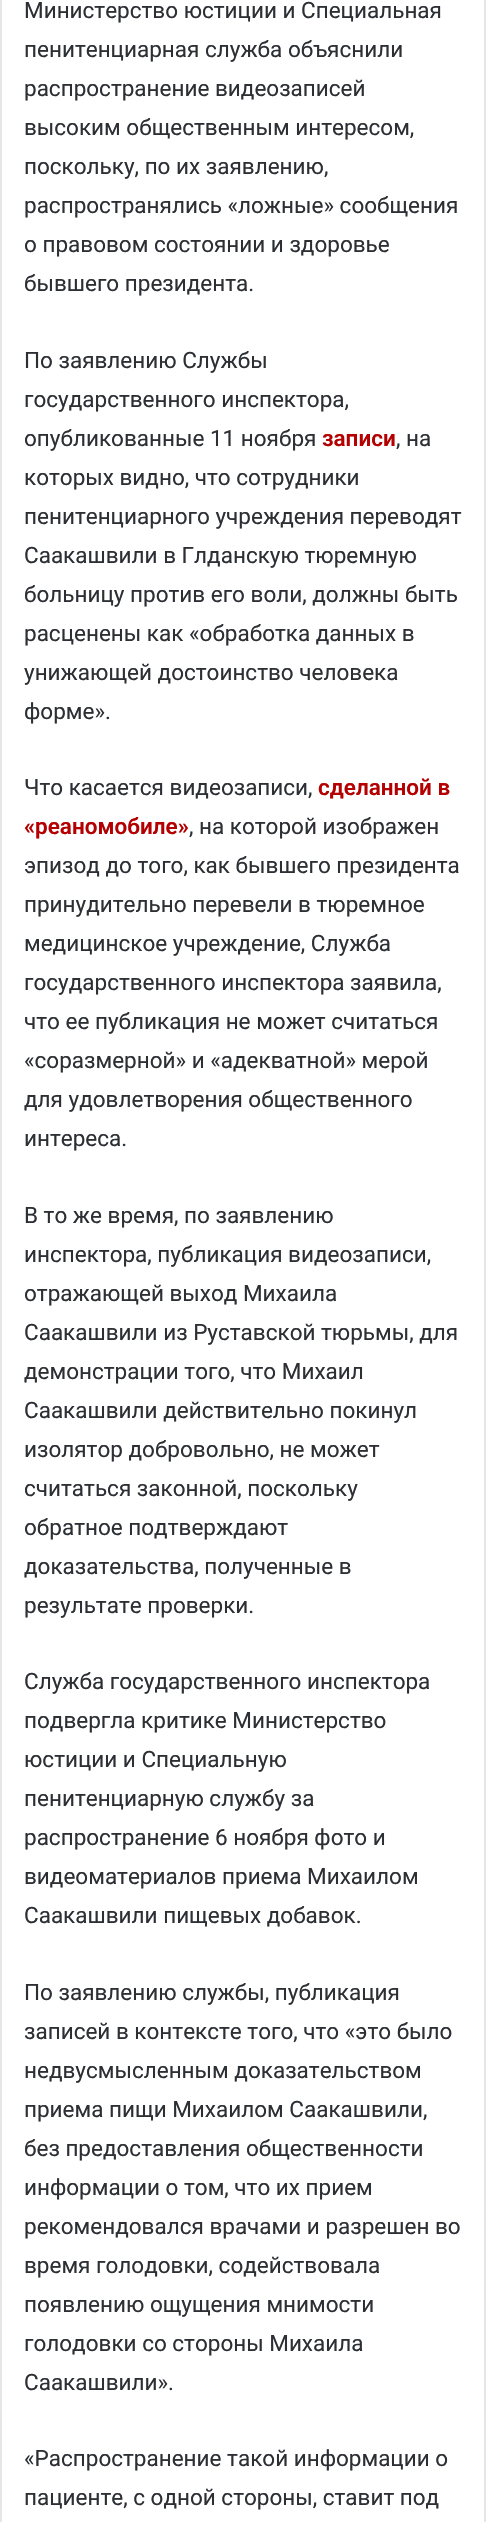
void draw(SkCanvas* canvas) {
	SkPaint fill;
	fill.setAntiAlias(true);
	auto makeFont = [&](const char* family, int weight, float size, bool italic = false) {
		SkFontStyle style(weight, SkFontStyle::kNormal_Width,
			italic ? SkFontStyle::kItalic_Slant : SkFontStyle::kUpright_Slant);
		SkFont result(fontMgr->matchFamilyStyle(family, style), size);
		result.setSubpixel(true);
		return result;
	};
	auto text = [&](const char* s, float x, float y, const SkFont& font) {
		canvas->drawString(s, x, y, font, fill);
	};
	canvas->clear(0xFFFFFFFF);
	fill.setStyle(SkPaint::kStroke_Style);
	fill.setStrokeWidth(2);
	fill.setColor(0xFFE6E6E6);
	canvas->drawRect(SkRect::MakeLTRB(1, -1, 485, 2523), fill);
	auto font1 = makeFont("Roboto", 400, 22.5f);
	fill.setStyle(SkPaint::kFill_Style);
	fill.setColor(0xFF2C2F34);
	text("Министерство юстиции и Специальная", 24, 18, font1);
	text("пенитенциарная служба объяснили", 24, 57, font1);
	text("распространение видеозаписей", 24, 96, font1);
	text("высоким общественным интересом,", 24, 135, font1);
	text("поскольку, по их заявлению,", 24, 174, font1);
	text("распространялись «ложные» сообщения", 24, 213, font1);
	text("о правовом состоянии и здоровье", 24, 252, font1);
	text("бывшего президента.", 24, 291, font1);
	text("По заявлению Службы", 24, 368, font1);
	text("государственного инспектора,", 24, 407, font1);
	text("опубликованные 11 ноября", 24, 446, font1);
	auto font2 = makeFont("Roboto", 600, 22.5f);
	fill.setColor(0xFFB40000);
	text("записи", 322, 446, font2);
	fill.setColor(0xFF2C2F34);
	text(", на", 396, 446, font1);
	text("которых видно, что сотрудники", 24, 485, font1);
	text("пенитенциарного учреждения переводят", 24, 524, font1);
	text("Саакашвили в Глданскую тюремную", 24, 563, font1);
	text("больницу против его воли, должны быть", 24, 602, font1);
	text("расценены как «обработка данных в", 24, 641, font1);
	text("унижающей достоинство человека", 24, 680, font1);
	text("форме».", 24, 719, font1);
	text("Что касается видеозаписи,", 24, 795, font1);
	fill.setColor(0xFFB40000);
	text("сделанной в", 318, 795, font2);
	text("«реаномобиле»", 24, 834, font2);
	fill.setColor(0xFF2C2F34);
	text(", на которой изображен", 189, 834, font1);
	text("эпизод до того, как бывшего президента", 24, 873, font1);
	text("принудительно перевели в тюремное", 24, 912, font1);
	text("медицинское учреждение, Служба", 24, 951, font1);
	text("государственного инспектора заявила,", 24, 990, font1);
	text("что ее публикация не может считаться", 24, 1029, font1);
	text("«соразмерной» и «адекватной» мерой", 24, 1068, font1);
	text("для удовлетворения общественного", 24, 1107, font1);
	text("интереса.", 24, 1146, font1);
	text("В то же время, по заявлению", 24, 1223, font1);
	text("инспектора, публикация видеозаписи,", 24, 1262, font1);
	text("отражающей выход Михаила", 24, 1301, font1);
	text("Саакашвили из Руставской тюрьмы, для", 24, 1340, font1);
	text("демонстрации того, что Михаил", 24, 1379, font1);
	text("Саакашвили действительно покинул", 24, 1418, font1);
	text("изолятор добровольно, не может", 24, 1457, font1);
	text("считаться законной, поскольку", 24, 1496, font1);
	text("обратное подтверждают", 24, 1535, font1);
	text("доказательства, полученные в", 24, 1574, font1);
	text("результате проверки.", 24, 1613, font1);
	text("Служба государственного инспектора", 24, 1689, font1);
	text("подвергла критике Министерство", 24, 1728, font1);
	text("юстиции и Специальную", 24, 1767, font1);
	text("пенитенциарную службу за", 24, 1806, font1);
	text("распространение 6 ноября фото и", 24, 1845, font1);
	text("видеоматериалов приема Михаилом", 24, 1884, font1);
	text("Саакашвили пищевых добавок.", 24, 1923, font1);
	text("По заявлению службы, публикация", 24, 2000, font1);
	text("записей в контексте того, что «это было", 24, 2039, font1);
	text("недвусмысленным доказательством", 24, 2078, font1);
	text("приема пищи Михаилом Саакашвили,", 24, 2117, font1);
	text("без предоставления общественности", 24, 2156, font1);
	text("информации о том, что их прием", 24, 2195, font1);
	text("рекомендовался врачами и разрешен во", 24, 2234, font1);
	text("время голодовки, содействовала", 24, 2273, font1);
	text("появлению ощущения мнимости", 24, 2312, font1);
	text("голодовки со стороны Михаила", 24, 2351, font1);
	text("Саакашвили».", 24, 2390, font1);
	text("«Распространение такой информации о", 24, 2466, font1);
	text("пациенте, с одной стороны, ставит под", 24, 2505, font1);
}
